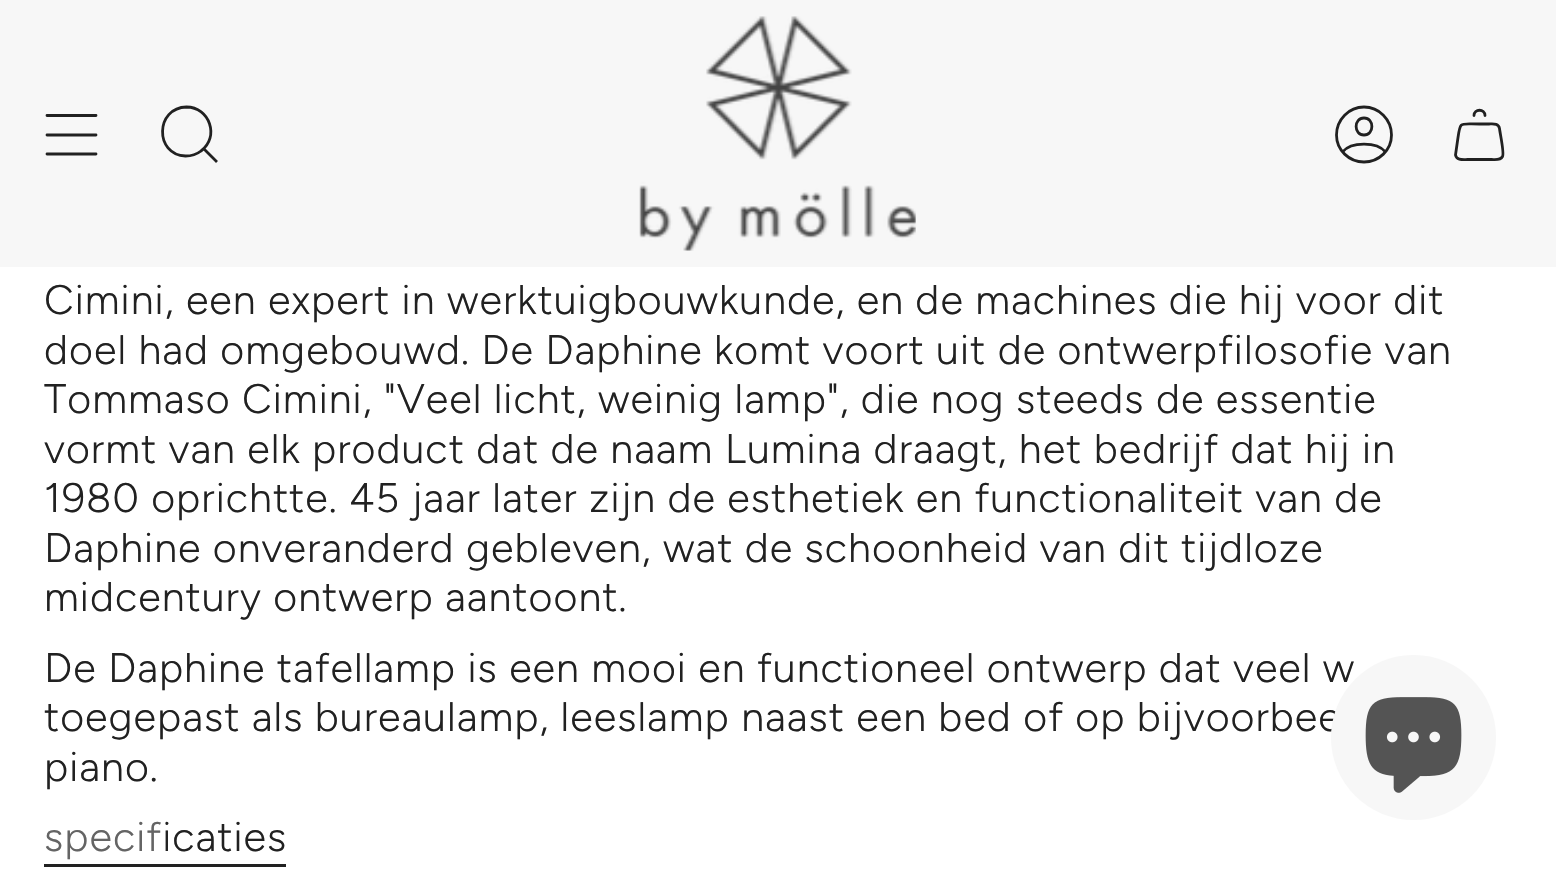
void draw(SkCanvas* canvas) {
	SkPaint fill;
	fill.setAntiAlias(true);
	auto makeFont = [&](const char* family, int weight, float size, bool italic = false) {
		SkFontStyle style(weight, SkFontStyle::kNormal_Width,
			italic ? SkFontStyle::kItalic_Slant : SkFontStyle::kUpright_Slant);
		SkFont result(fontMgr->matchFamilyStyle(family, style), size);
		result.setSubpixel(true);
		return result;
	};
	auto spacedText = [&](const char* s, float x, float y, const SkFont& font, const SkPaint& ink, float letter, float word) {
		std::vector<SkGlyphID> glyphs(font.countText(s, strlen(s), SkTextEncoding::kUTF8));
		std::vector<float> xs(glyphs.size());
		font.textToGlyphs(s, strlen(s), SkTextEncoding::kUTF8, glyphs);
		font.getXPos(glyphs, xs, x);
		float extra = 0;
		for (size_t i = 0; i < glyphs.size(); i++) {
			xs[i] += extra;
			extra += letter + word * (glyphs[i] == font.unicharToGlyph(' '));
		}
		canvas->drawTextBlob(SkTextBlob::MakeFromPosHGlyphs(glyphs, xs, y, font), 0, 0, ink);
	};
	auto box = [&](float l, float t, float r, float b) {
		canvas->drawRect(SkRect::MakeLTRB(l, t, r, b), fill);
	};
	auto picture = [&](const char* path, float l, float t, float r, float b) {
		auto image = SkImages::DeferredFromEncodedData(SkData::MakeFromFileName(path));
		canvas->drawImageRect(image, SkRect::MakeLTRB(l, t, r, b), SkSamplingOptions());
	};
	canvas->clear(0xFFFFFFFF);
	fill.setColor(0xFFF7F7F7);
	box(0, 0, 1556, 267);
	fill.setStyle(SkPaint::kStroke_Style);
	fill.setStrokeWidth(2.8f);
	fill.setStrokeCap(SkPaint::kRound_Cap);
	fill.setStrokeJoin(SkPaint::kRound_Join);
	fill.setColor(0xFF212121);
	canvas->drawPath(SkPathBuilder().moveTo(47, 115.5f).lineTo(96, 115.5f).moveTo(47, 135).lineTo(96, 135).moveTo(47, 154).lineTo(96, 154).detach(), fill);
	fill.setStrokeCap(SkPaint::kButt_Cap);
	fill.setStrokeJoin(SkPaint::kMiter_Join);
	canvas->drawPath(SkPathBuilder().moveTo(186.5f, 107).cubicTo(209.5f, 107, 220, 137, 201, 151).cubicTo(196.5f, 154.5f, 191, 156, 185.5f, 156).cubicTo(154, 154.5f, 155.5f, 107.5f, 186.5f, 107).close().moveTo(204, 149).lineTo(217, 162).detach(), fill);
	picture("image0.png", 639, 16, 916, 251);
	fill.setStrokeCap(SkPaint::kRound_Cap);
	fill.setStrokeJoin(SkPaint::kRound_Join);
	canvas->drawPath(SkPathBuilder().moveTo(1364, 107).cubicTo(1349, 107, 1336.5f, 119.5f, 1336.5f, 135).cubicTo(1336.5f, 150, 1349, 162, 1364, 162).cubicTo(1379, 162, 1391.5f, 150, 1391.5f, 135).cubicTo(1391.5f, 119.5f, 1379, 107, 1364, 107).close().moveTo(1342.5f, 152).cubicTo(1351, 141.5f, 1377, 141.5f, 1385.5f, 152).moveTo(1364, 135).cubicTo(1374.5f, 135, 1374.5f, 118, 1364, 118).cubicTo(1353.5f, 118, 1353.5f, 135, 1364, 135).close().detach(), fill);
	canvas->drawPath(SkPathBuilder().moveTo(1499.5f, 128.5f).cubicTo(1500, 133.5f, 1504.5f, 153, 1502.5f, 156.5f).cubicTo(1500.5f, 160.5f, 1495.5f, 159.5f, 1491.5f, 159.5f).lineTo(1467.5f, 159.5f).cubicTo(1463, 159.5f, 1456.5f, 160.5f, 1455.5f, 155).lineTo(1457.5f, 141).cubicTo(1460.5f, 120.5f, 1458.5f, 124, 1479.5f, 124).lineTo(1489, 124).cubicTo(1493, 124, 1498.5f, 123, 1499.5f, 128.5f).close().moveTo(1485, 115.5f).cubicTo(1485, 108.5f, 1474, 108.5f, 1474, 115.5f).detach(), fill);
	fill.setStyle(SkPaint::kFill_Style);
	box(44, 864, 286, 867);
	auto font1 = makeFont("Figtree", 300, 41.25f);
	spacedText("Cimini, een expert in werktuigbouwkunde, en de machines die hij voor dit", 44, 314, font1, fill, 1.03f, 0);
	spacedText("doel had omgebouwd. De Daphine komt voort uit de ontwerpfilosofie van", 44, 364, font1, fill, 1.03f, 0);
	spacedText("Tommaso Cimini, \"Veel licht, weinig lamp\", die nog steeds de essentie", 44, 413, font1, fill, 1.03f, 0);
	spacedText("vormt van elk product dat de naam Lumina draagt, het bedrijf dat hij in", 44, 463, font1, fill, 1.03f, 0);
	spacedText("1980 oprichtte. 45 jaar later zijn de esthetiek en functionaliteit van de", 44, 512, font1, fill, 1.03f, 0);
	spacedText("Daphine onveranderd gebleven, wat de schoonheid van dit tijdloze", 44, 562, font1, fill, 1.03f, 0);
	spacedText("midcentury ontwerp aantoont.", 44, 611, font1, fill, 1.03f, 0);
	spacedText("De Daphine tafellamp is een mooi en functioneel ontwerp dat veel w", 44, 682, font1, fill, 1.03f, 0);
	spacedText("toegepast als bureaulamp, leeslamp naast een bed of op bijvoorbee", 44, 731, font1, fill, 1.03f, 0);
	spacedText("piano.", 44, 781, font1, fill, 1.03f, 0);
	{
		const SkColor colors[] = {0xFF646464, 0xFF646464, 0xFF212121, 0xFF212121};
		const float stops[] = {0, 0.5f, 0.5f, 1};
		const SkPoint ends[] = {{44, 840}, {287, 840}};
		fill.setShader(SkGradientShader::MakeLinear(ends, colors, stops, 4, SkTileMode::kClamp));
		fill.setAlpha(255);
	}
	spacedText("specificaties", 44, 851, font1, fill, 1.03f, 0);
	fill.setShader(nullptr);
	fill.setColor(0xFFF7F7F7);
	canvas->drawCircle(1413.5f, 737.5f, 82.5f, fill);
	picture("image1.png", 1365, 697, 1462, 793);
}
